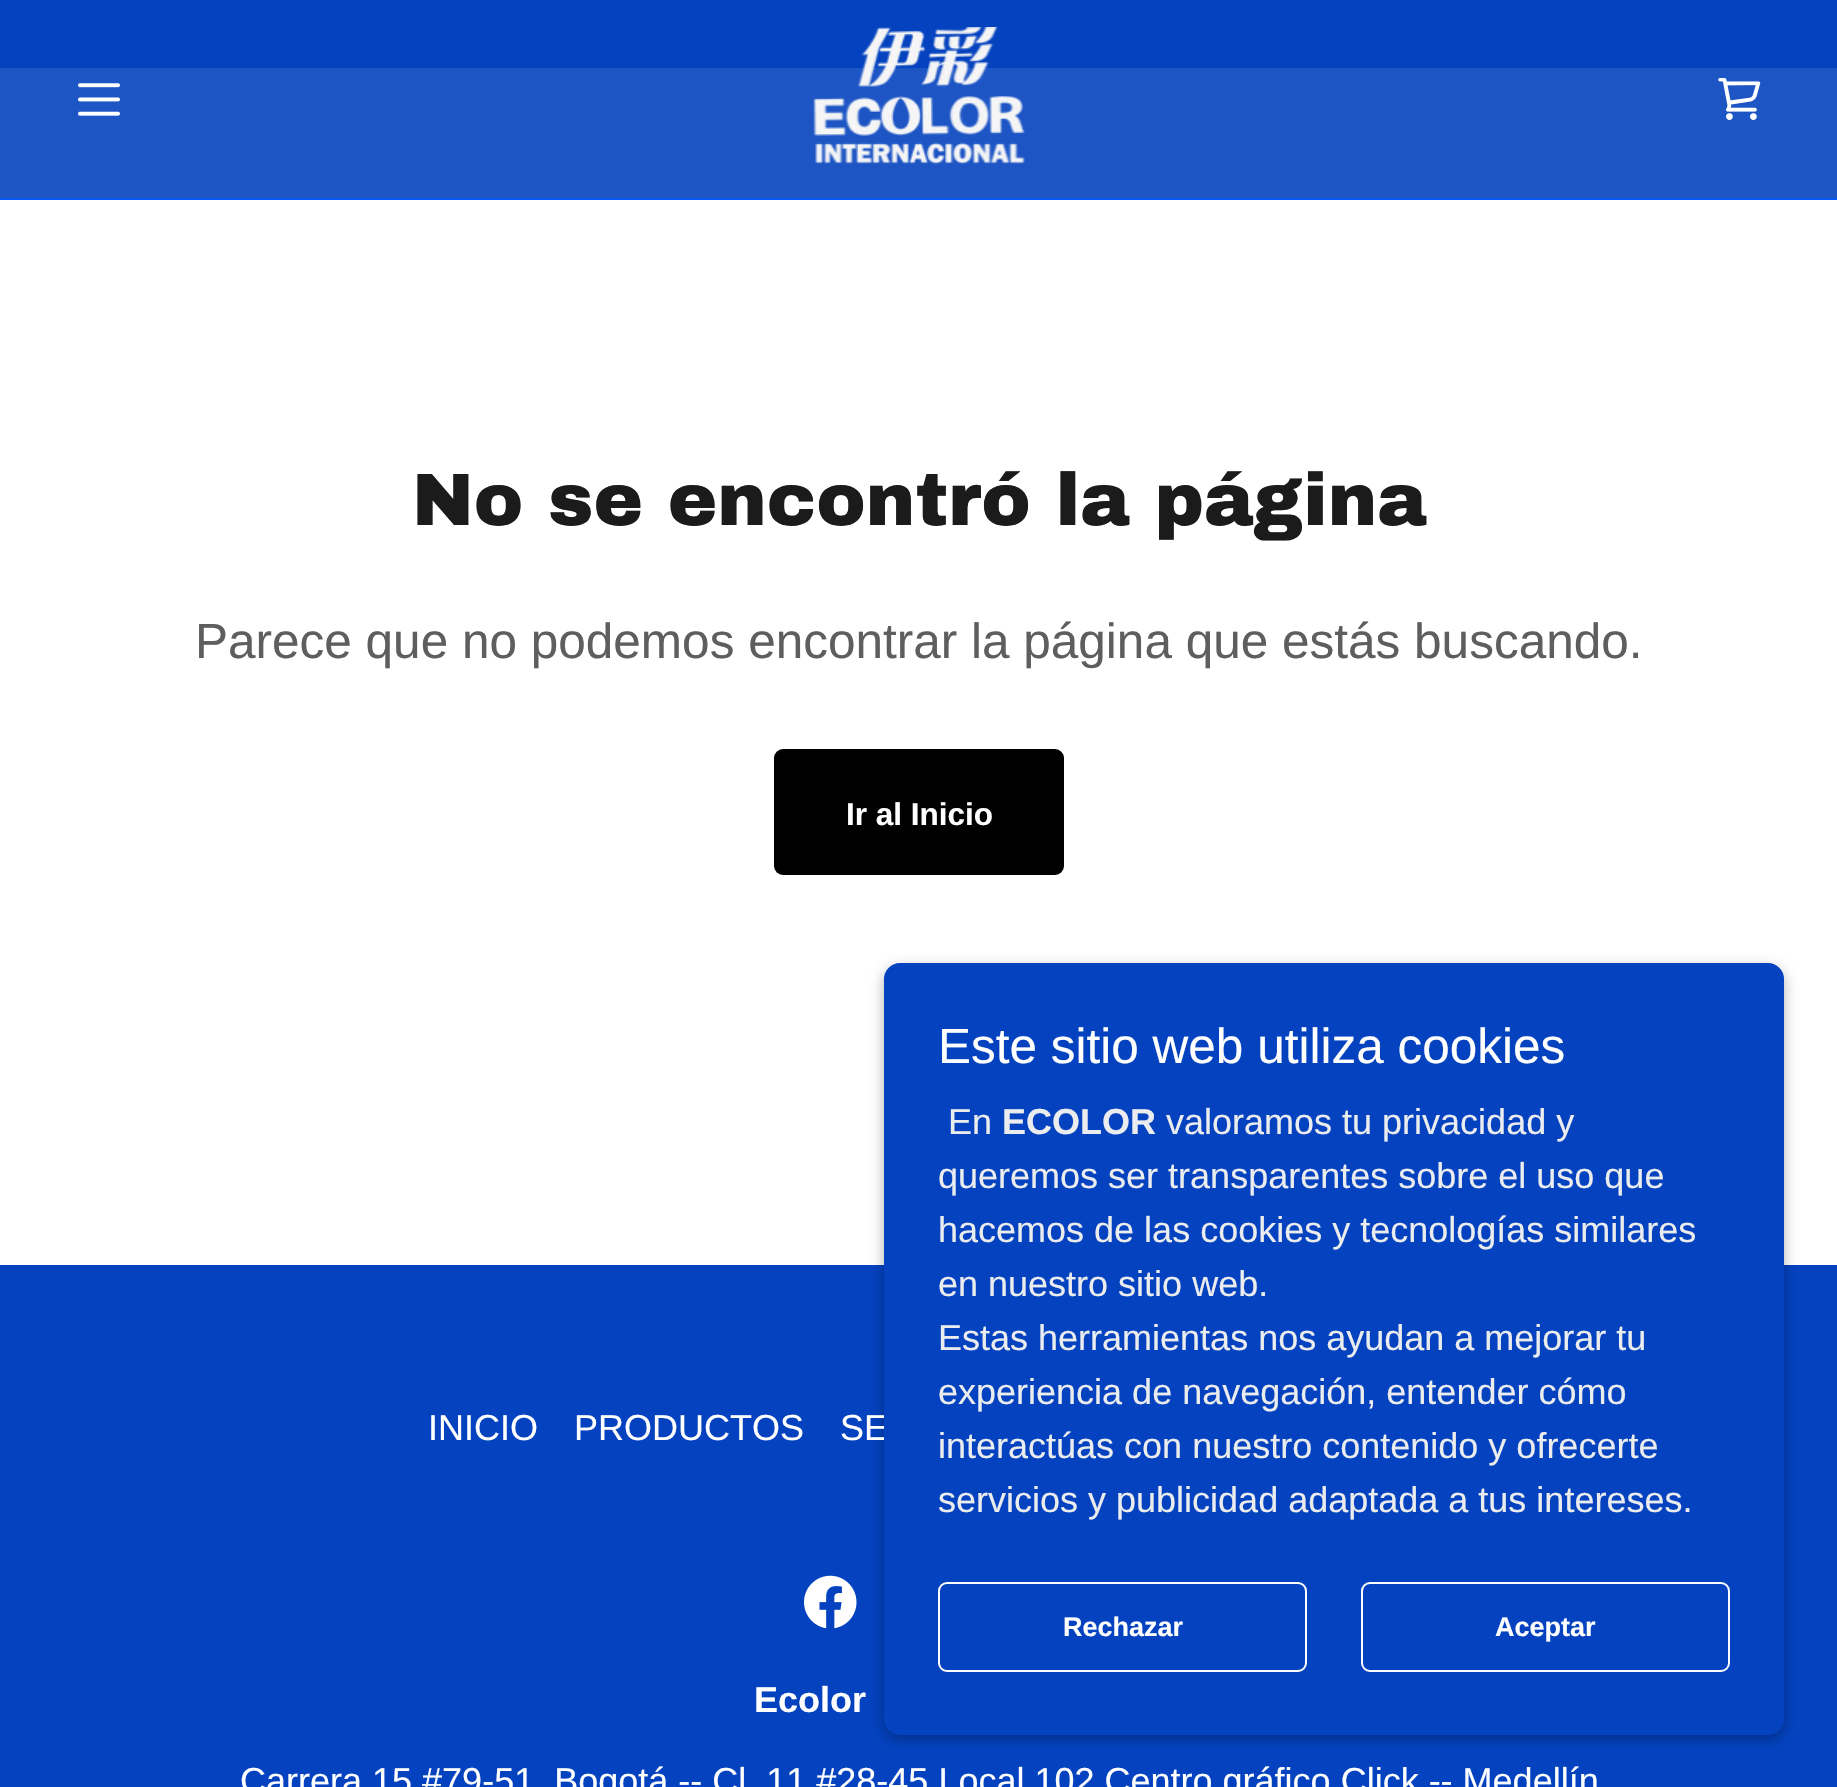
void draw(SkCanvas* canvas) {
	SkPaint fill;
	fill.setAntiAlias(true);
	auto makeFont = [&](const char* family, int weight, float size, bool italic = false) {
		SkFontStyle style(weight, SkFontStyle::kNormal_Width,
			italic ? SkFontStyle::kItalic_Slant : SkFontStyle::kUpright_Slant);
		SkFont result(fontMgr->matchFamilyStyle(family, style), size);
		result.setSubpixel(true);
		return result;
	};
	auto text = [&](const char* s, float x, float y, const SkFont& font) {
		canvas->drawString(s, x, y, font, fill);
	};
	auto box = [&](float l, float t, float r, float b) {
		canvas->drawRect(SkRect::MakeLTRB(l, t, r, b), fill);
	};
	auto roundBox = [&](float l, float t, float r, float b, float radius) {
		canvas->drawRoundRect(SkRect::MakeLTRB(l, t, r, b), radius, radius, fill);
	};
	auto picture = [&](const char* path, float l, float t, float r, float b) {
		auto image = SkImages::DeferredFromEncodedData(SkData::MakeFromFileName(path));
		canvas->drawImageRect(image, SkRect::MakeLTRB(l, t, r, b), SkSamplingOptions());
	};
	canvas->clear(0xFF0442BF);
	fill.setColor(0xFF1D55C5);
	box(0, 68, 1837, 198);
	picture("image0.png", 78, 83, 120, 116);
	picture("image1.png", 813, 27, 1025, 165);
	picture("image2.png", 1718, 78, 1761, 120);
	fill.setColor(0xFF0757F4);
	box(0, 198, 1837, 200);
	fill.setColor(0xFFFFFFFF);
	box(0, 200, 1837, 1265);
	fill.setColor(0xFF000000);
	roundBox(774, 749, 1064, 875, 9);
	fill.setColor(0x4D000000);
	fill.setMaskFilter(SkMaskFilter::MakeBlur(kNormal_SkBlurStyle, 7));
	canvas->drawRoundRect(SkRect::MakeLTRB(884, 968, 1784, 1739), 16, 16, fill);
	fill.setMaskFilter(nullptr);
	picture("image3.png", 804, 1575, 857, 1629);
	auto font1 = makeFont("Archivo Black", 900, 74.25f);
	fill.setColor(0xFF1B1B1B);
	text("No se encontró la página", 412, 525, font1);
	auto font2 = makeFont("Liberation Sans", 400, 49.5f);
	fill.setColor(0xFF5E5E5E);
	text("Parece que no podemos encontrar la página que estás buscando.", 195, 658, font2);
	auto font3 = makeFont("Liberation Sans", 700, 31.5f);
	fill.setColor(0xFFFFFFFF);
	text("Ir al Inicio", 846, 825, font3);
	auto font4 = makeFont("Liberation Sans", 400, 36);
	text("INICIO", 428, 1440, font4);
	text("PRODUCTOS", 574, 1440, font4);
	text("SE", 840, 1440, font4);
	fill.setColor(0xFF0442BF);
	roundBox(884, 963, 1784, 1735, 16);
	fill.setStyle(SkPaint::kStroke_Style);
	fill.setStrokeWidth(2);
	fill.setColor(0xFFFFFFFF);
	canvas->drawRoundRect(SkRect::MakeLTRB(1362, 1583, 1729, 1671), 8, 8, fill);
	auto font5 = makeFont("Liberation Sans", 700, 27);
	fill.setStyle(SkPaint::kFill_Style);
	text("Aceptar", 1495, 1636, font5);
	fill.setStyle(SkPaint::kStroke_Style);
	canvas->drawRoundRect(SkRect::MakeLTRB(939, 1583, 1306, 1671), 8, 8, fill);
	fill.setStyle(SkPaint::kFill_Style);
	text("Rechazar", 1063, 1636, font5);
	fill.setColor(0xFFEBECEE);
	text("servicios y publicidad adaptada a tus intereses.", 938, 1512, font4);
	text("interactúas con nuestro contenido y ofrecerte", 938, 1458, font4);
	text("experiencia de navegación, entender cómo", 938, 1404, font4);
	text("Estas herramientas nos ayudan a mejorar tu", 938, 1350, font4);
	text("en nuestro sitio web.", 938, 1296, font4);
	text("hacemos de las cookies y tecnologías similares", 938, 1242, font4);
	text("queremos ser transparentes sobre el uso que", 938, 1188, font4);
	text("valoramos tu privacidad y", 1166, 1134, font4);
	auto font6 = makeFont("Liberation Sans", 700, 36);
	text("ECOLOR", 1002, 1134, font6);
	text("En", 948, 1134, font4);
	fill.setColor(0xFFFFFFFF);
	text("Este sitio web utiliza cookies", 938, 1063, font2);
	text("Ecolor", 754, 1712, font6);
	text("Carrera 15 #79-51, Bogotá -- Cl. 11 #28-45 Local 102 Centro gráfico Click -- Medellín", 240, 1793, font4);
}
